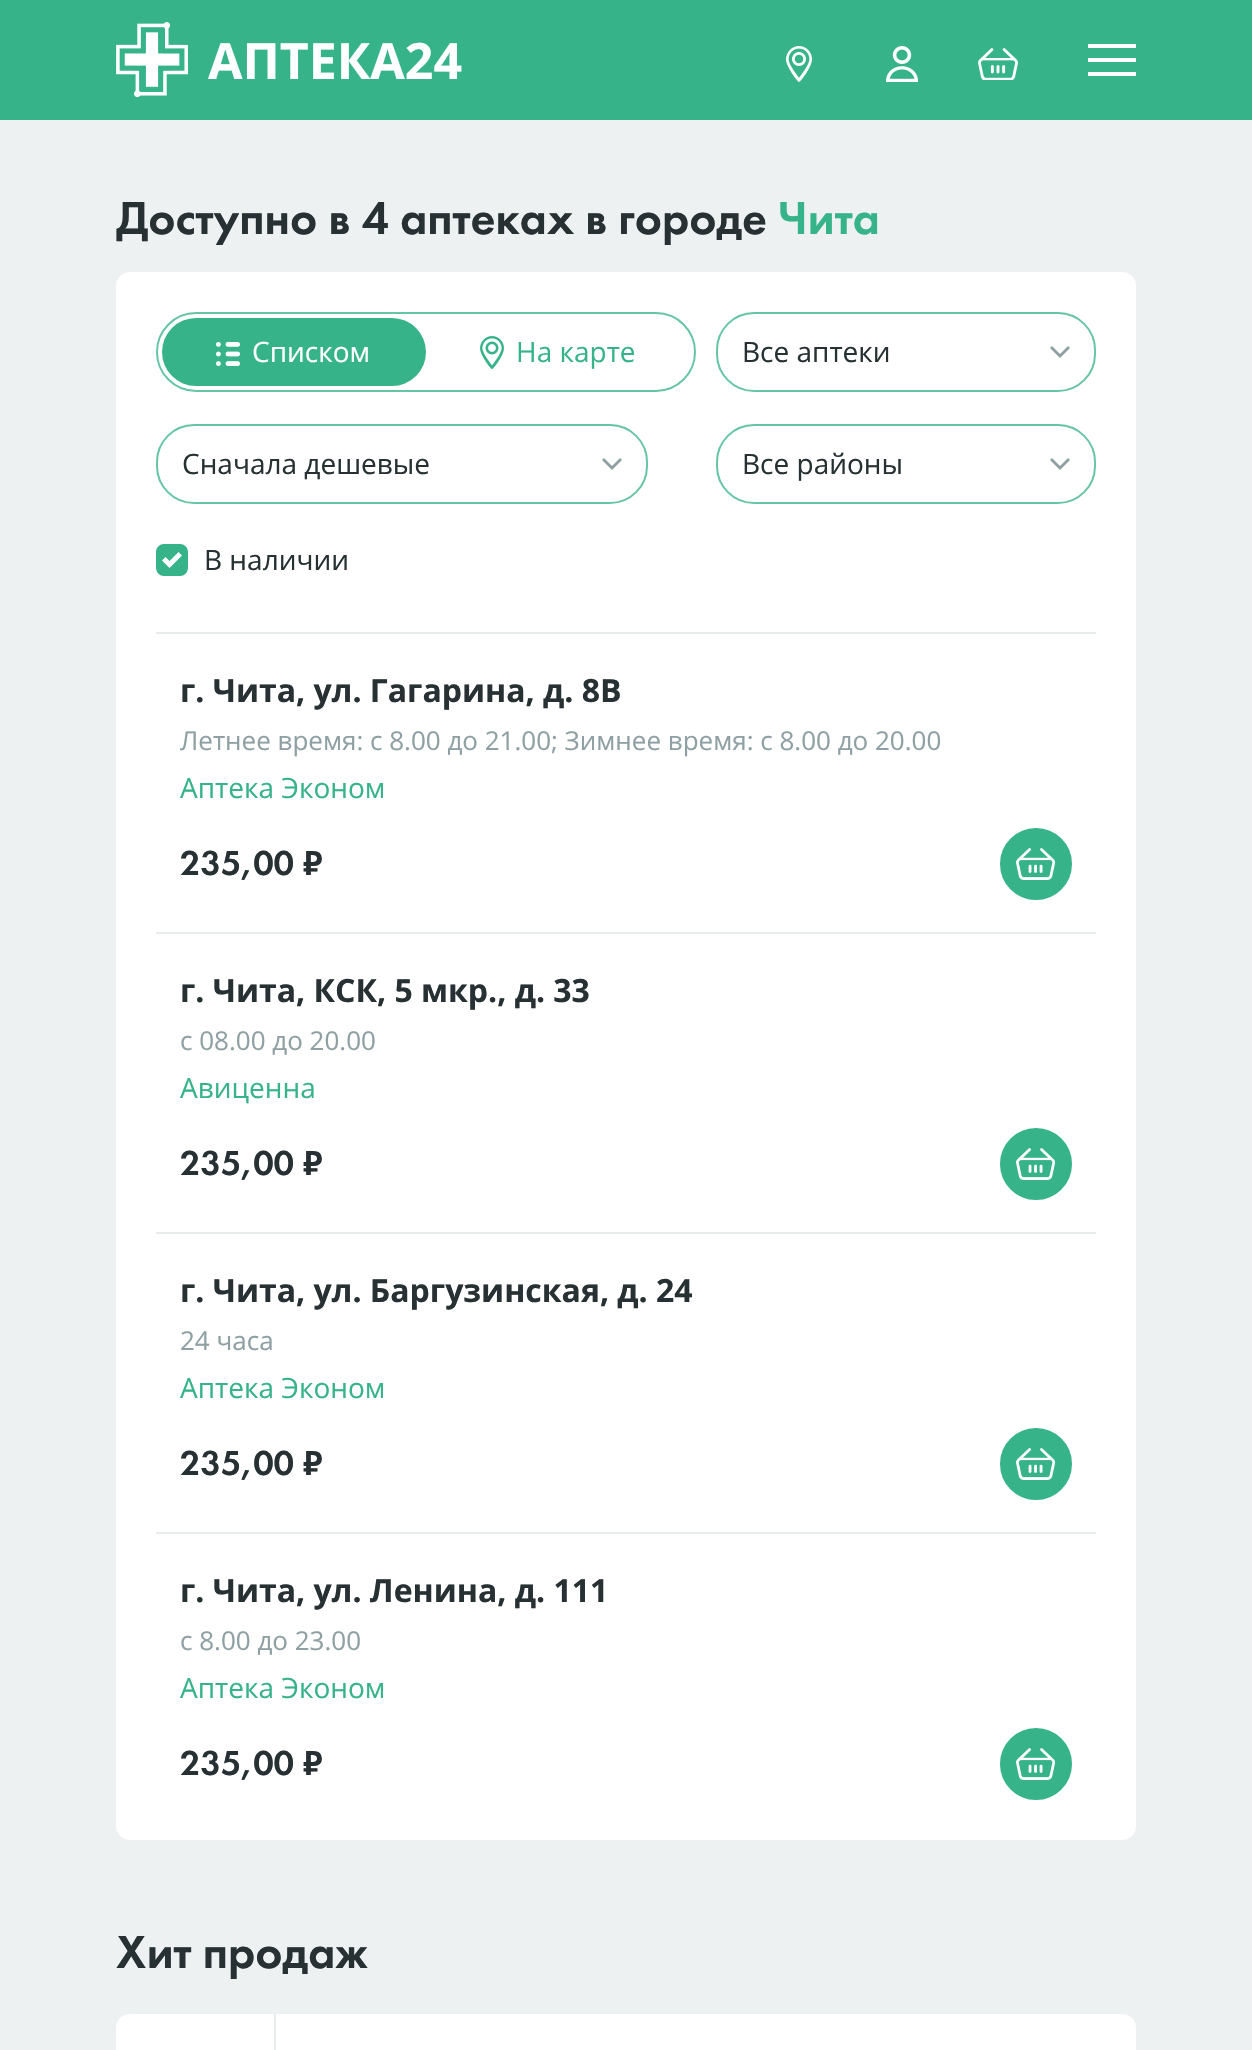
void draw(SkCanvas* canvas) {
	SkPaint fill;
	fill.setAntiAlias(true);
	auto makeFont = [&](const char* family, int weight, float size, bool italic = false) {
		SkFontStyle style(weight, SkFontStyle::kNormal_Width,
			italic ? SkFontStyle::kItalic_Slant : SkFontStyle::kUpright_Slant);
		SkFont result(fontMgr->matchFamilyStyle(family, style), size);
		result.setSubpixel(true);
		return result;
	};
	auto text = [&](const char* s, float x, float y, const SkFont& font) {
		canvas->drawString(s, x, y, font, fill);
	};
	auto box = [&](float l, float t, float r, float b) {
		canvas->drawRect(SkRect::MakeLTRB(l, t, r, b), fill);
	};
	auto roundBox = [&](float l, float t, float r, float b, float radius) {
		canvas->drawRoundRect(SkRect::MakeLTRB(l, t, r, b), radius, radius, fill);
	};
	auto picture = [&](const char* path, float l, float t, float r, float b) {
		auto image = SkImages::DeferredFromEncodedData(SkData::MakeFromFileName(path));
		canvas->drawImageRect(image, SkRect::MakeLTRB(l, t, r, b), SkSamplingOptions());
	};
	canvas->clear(0xFFEDF1F2);
	fill.setColor(0xFF36B389);
	box(0, 0, 1252, 120);
	picture("image0.png", 116, 22, 188, 98);
	picture("image1.png", 786, 46, 812, 82);
	picture("image2.png", 886, 46, 918, 82);
	picture("image3.png", 978, 48, 1018, 80);
	fill.setColor(0xFFFFFFFF);
	box(1088, 44, 1136, 48);
	box(1088, 58, 1136, 62);
	box(1088, 72, 1136, 76);
	roundBox(116, 272, 1136, 1840, 14);
	fill.setStyle(SkPaint::kStroke_Style);
	fill.setStrokeWidth(2);
	fill.setColor(0xFF66C5A4);
	canvas->drawRoundRect(SkRect::MakeLTRB(157, 313, 695, 391), 39, 39, fill);
	fill.setStyle(SkPaint::kFill_Style);
	fill.setColor(0xFF36B389);
	roundBox(162, 318, 426, 386, 34);
	picture("image4.png", 216, 342, 240, 366);
	picture("image5.png", 480, 336, 504, 370);
	fill.setColor(0xFF8EA0A3);
	canvas->drawPath(SkPathBuilder().moveTo(620, 458).lineTo(612, 466).lineTo(604, 458).lineTo(602, 460).lineTo(612, 470).lineTo(622, 460).close().detach(), fill);
	fill.setStyle(SkPaint::kStroke_Style);
	fill.setColor(0xFF66C5A4);
	canvas->drawRoundRect(SkRect::MakeLTRB(157, 425, 647, 503), 37, 37, fill);
	fill.setStyle(SkPaint::kFill_Style);
	fill.setColor(0xFF8EA0A3);
	canvas->drawPath(SkPathBuilder().moveTo(1068, 346).lineTo(1060, 354).lineTo(1052, 346).lineTo(1050, 348).lineTo(1060, 358).lineTo(1070, 348).close().detach(), fill);
	fill.setStyle(SkPaint::kStroke_Style);
	fill.setColor(0xFF66C5A4);
	canvas->drawRoundRect(SkRect::MakeLTRB(717, 313, 1095, 391), 37, 37, fill);
	fill.setStyle(SkPaint::kFill_Style);
	fill.setColor(0xFF8EA0A3);
	canvas->drawPath(SkPathBuilder().moveTo(1068, 458).lineTo(1060, 466).lineTo(1052, 458).lineTo(1050, 460).lineTo(1060, 470).lineTo(1070, 460).close().detach(), fill);
	fill.setStyle(SkPaint::kStroke_Style);
	fill.setColor(0xFF66C5A4);
	canvas->drawRoundRect(SkRect::MakeLTRB(717, 425, 1095, 503), 37, 37, fill);
	fill.setStyle(SkPaint::kFill_Style);
	fill.setColor(0xFF36B389);
	canvas->drawRoundRect(SkRect::MakeLTRB(157, 545, 187, 575), 7, 7, fill);
	fill.setStyle(SkPaint::kStroke_Style);
	canvas->drawRoundRect(SkRect::MakeLTRB(157, 545, 187, 575), 7, 7, fill);
	fill.setStyle(SkPaint::kFill_Style);
	fill.setColor(0xFFFFFFFF);
	canvas->drawPath(SkPathBuilder().moveTo(178.5f, 552).lineTo(169.5f, 561).lineTo(165.5f, 557).lineTo(162, 560.5f).lineTo(169.5f, 568).lineTo(182, 555.5f).close().detach(), fill);
	fill.setColor(0xFFE8ECED);
	box(156, 632, 1096, 634);
	fill.setColor(0xFF36B389);
	canvas->drawCircle(1036, 864, 35, fill);
	fill.setStyle(SkPaint::kStroke_Style);
	canvas->drawCircle(1036, 864, 35, fill);
	picture("image6.png", 1016, 848, 1056, 880);
	fill.setStyle(SkPaint::kFill_Style);
	fill.setColor(0xFFE8ECED);
	box(156, 932, 1096, 934);
	fill.setColor(0xFF36B389);
	canvas->drawCircle(1036, 1164, 35, fill);
	fill.setStyle(SkPaint::kStroke_Style);
	canvas->drawCircle(1036, 1164, 35, fill);
	picture("image6.png", 1016, 1148, 1056, 1180);
	fill.setStyle(SkPaint::kFill_Style);
	fill.setColor(0xFFE8ECED);
	box(156, 1232, 1096, 1234);
	fill.setColor(0xFF36B389);
	canvas->drawCircle(1036, 1464, 35, fill);
	fill.setStyle(SkPaint::kStroke_Style);
	canvas->drawCircle(1036, 1464, 35, fill);
	picture("image6.png", 1016, 1448, 1056, 1480);
	fill.setStyle(SkPaint::kFill_Style);
	fill.setColor(0xFFE8ECED);
	box(156, 1532, 1096, 1534);
	fill.setColor(0xFF36B389);
	canvas->drawCircle(1036, 1764, 35, fill);
	fill.setStyle(SkPaint::kStroke_Style);
	canvas->drawCircle(1036, 1764, 35, fill);
	picture("image6.png", 1016, 1748, 1056, 1780);
	fill.setStyle(SkPaint::kFill_Style);
	fill.setColor(0xFFFFFFFF);
	roundBox(116, 2014, 1136, 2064, 14);
	fill.setColor(0xFFE8ECED);
	box(274, 2014, 276, 2050);
	auto font1 = makeFont("Open Sans", 700, 50);
	fill.setColor(0xFFFFFFFF);
	text("АПТЕКА24", 208, 79, font1);
	auto font2 = makeFont("Futura PT", 500, 48);
	fill.setColor(0xFF273133);
	text("Доступно в 4 аптеках в городе", 116, 234, font2);
	fill.setColor(0xFF36B389);
	text("Чита", 778, 234, font2);
	auto font3 = makeFont("Open Sans", 400, 28);
	fill.setColor(0xFFFFFFFF);
	text("Списком", 252, 362, font3);
	fill.setColor(0xFF36B389);
	text("На карте", 516, 362, font3);
	fill.setColor(0xFF273133);
	text("Сначала дешевые", 182, 474, font3);
	text("Все аптеки", 742, 362, font3);
	text("Все районы", 742, 474, font3);
	text("В наличии", 204, 570, font3);
	auto font4 = makeFont("Open Sans", 700, 32);
	text("г. Чита, ул. Гагарина, д. 8В", 180, 702, font4);
	auto font5 = makeFont("Open Sans", 400, 26);
	fill.setColor(0xFF8EA0A3);
	text("Летнее время: с 8.00 до 21.00; Зимнее время: с 8.00 до 20.00", 180, 750, font5);
	fill.setColor(0xFF36B389);
	text("Аптека Эконом", 180, 798, font3);
	auto font6 = makeFont("Futura PT", 500, 36);
	fill.setColor(0xFF273133);
	text("235,00 ₽", 180, 875, font6);
	text("г. Чита, КСК, 5 мкр., д. 33", 180, 1002, font4);
	fill.setColor(0xFF8EA0A3);
	text("с 08.00 до 20.00", 180, 1050, font5);
	fill.setColor(0xFF36B389);
	text("Авиценна", 180, 1098, font3);
	fill.setColor(0xFF273133);
	text("235,00 ₽", 180, 1175, font6);
	text("г. Чита, ул. Баргузинская, д. 24", 180, 1302, font4);
	fill.setColor(0xFF8EA0A3);
	text("24 часа", 180, 1350, font5);
	fill.setColor(0xFF36B389);
	text("Аптека Эконом", 180, 1398, font3);
	fill.setColor(0xFF273133);
	text("235,00 ₽", 180, 1475, font6);
	text("г. Чита, ул. Ленина, д. 111", 180, 1602, font4);
	fill.setColor(0xFF8EA0A3);
	text("с 8.00 до 23.00", 180, 1650, font5);
	fill.setColor(0xFF36B389);
	text("Аптека Эконом", 180, 1698, font3);
	fill.setColor(0xFF273133);
	text("235,00 ₽", 180, 1775, font6);
	text("Хит продаж", 116, 1968, font2);
}
